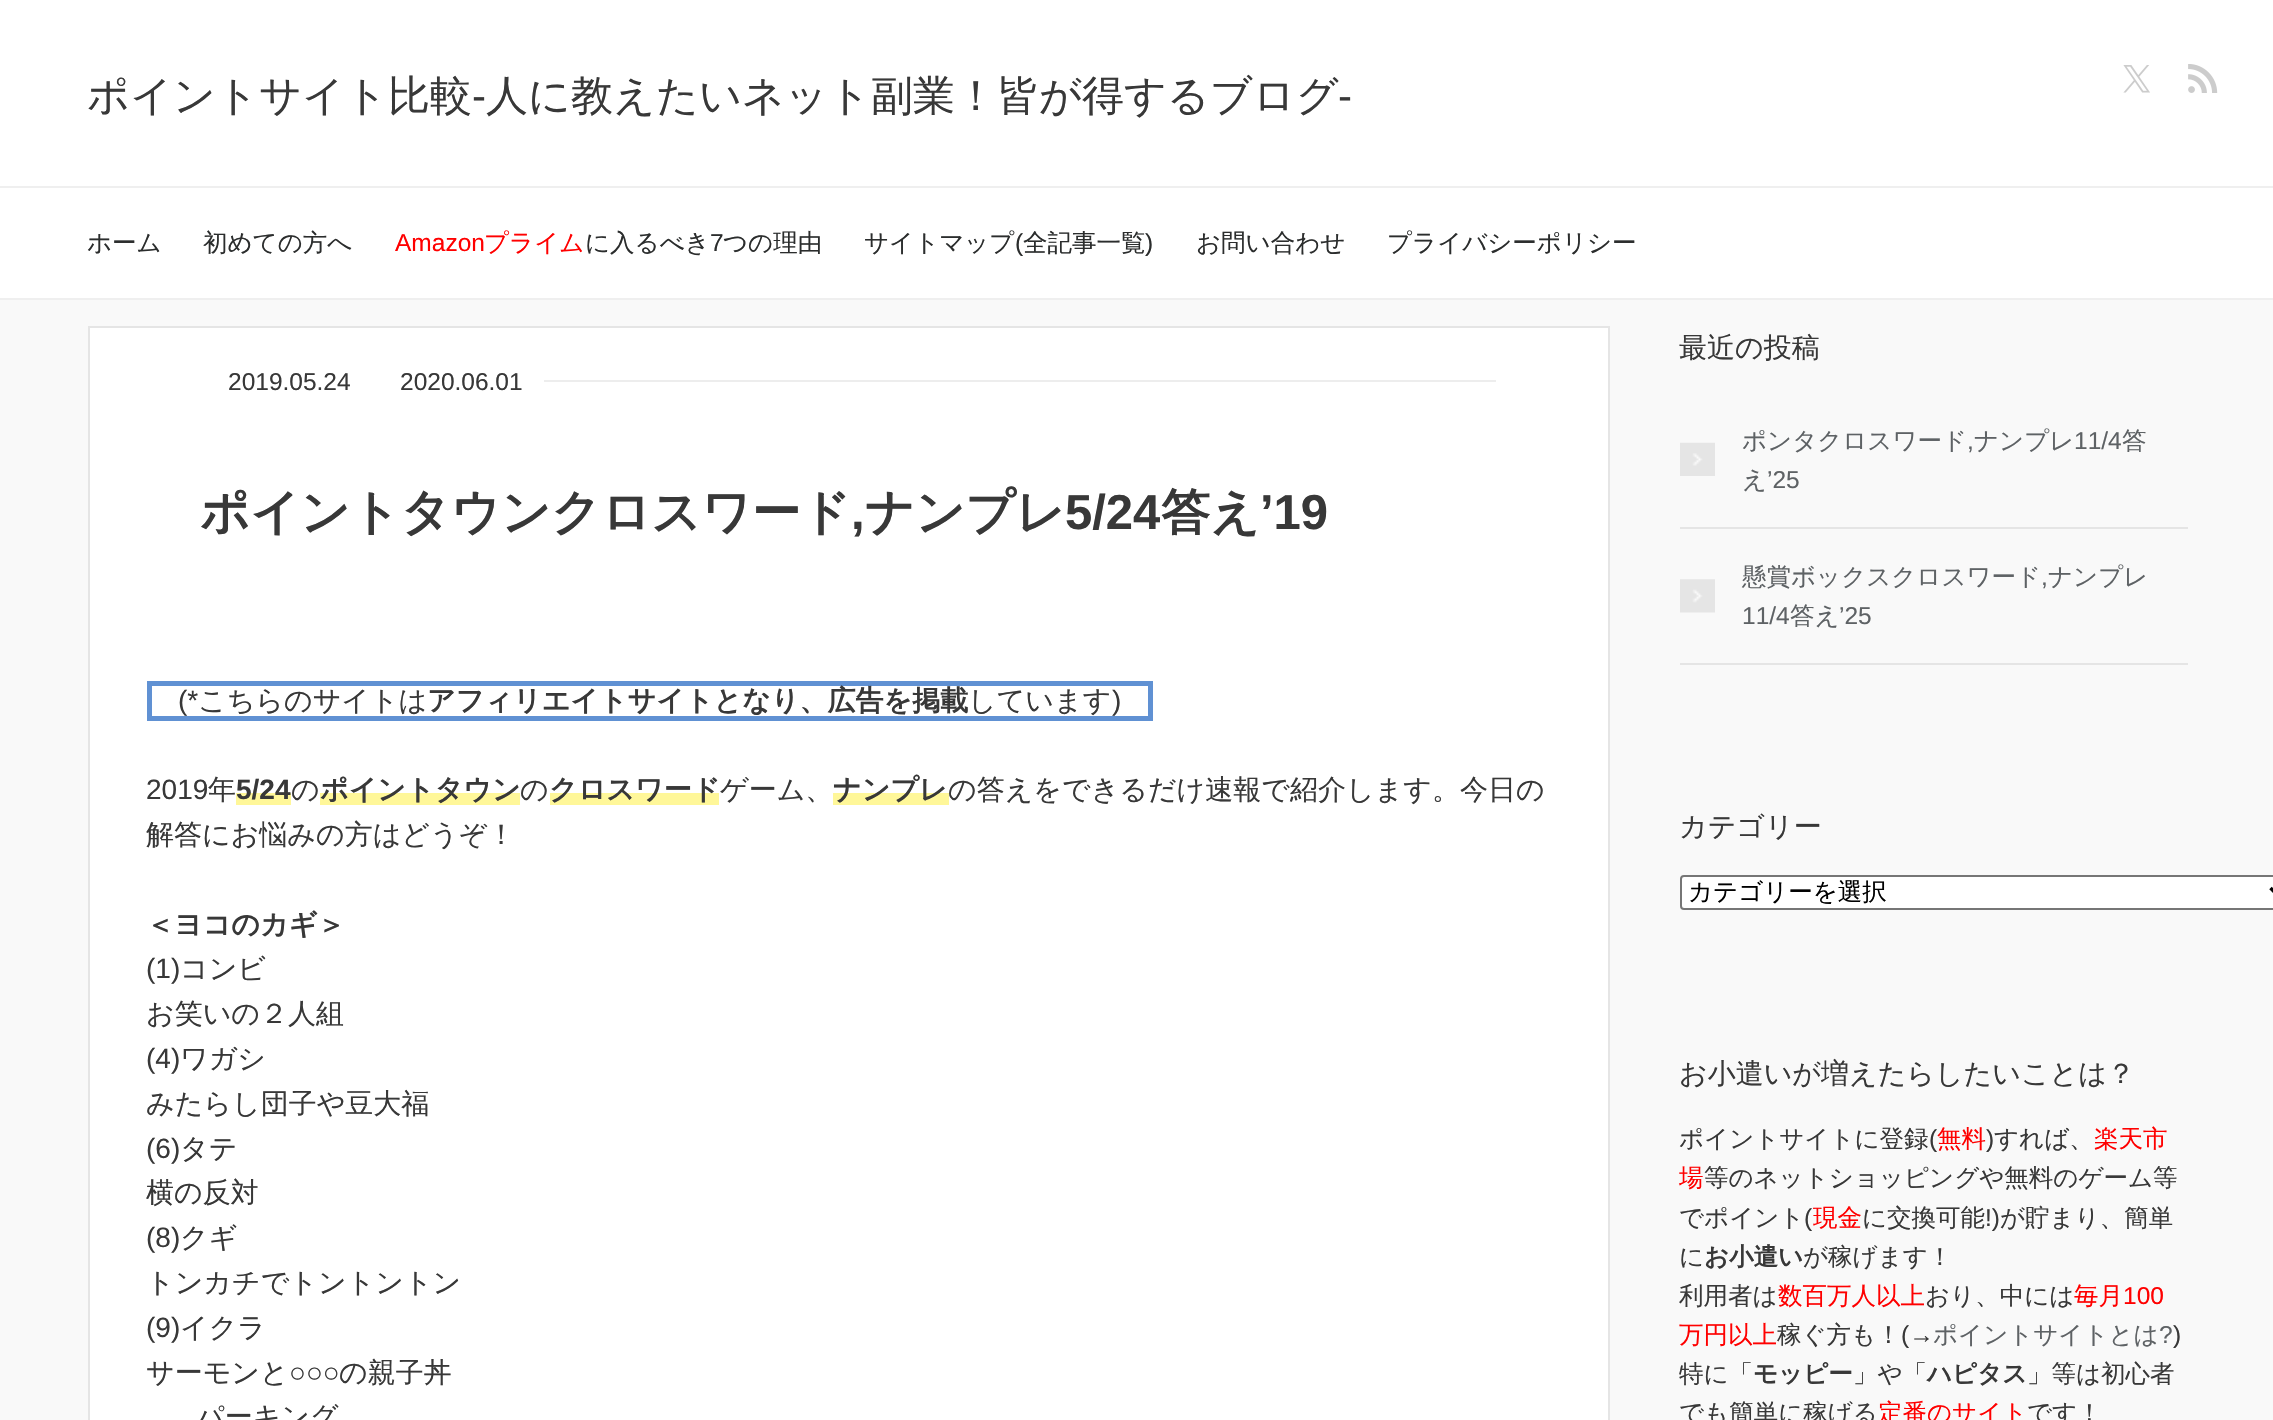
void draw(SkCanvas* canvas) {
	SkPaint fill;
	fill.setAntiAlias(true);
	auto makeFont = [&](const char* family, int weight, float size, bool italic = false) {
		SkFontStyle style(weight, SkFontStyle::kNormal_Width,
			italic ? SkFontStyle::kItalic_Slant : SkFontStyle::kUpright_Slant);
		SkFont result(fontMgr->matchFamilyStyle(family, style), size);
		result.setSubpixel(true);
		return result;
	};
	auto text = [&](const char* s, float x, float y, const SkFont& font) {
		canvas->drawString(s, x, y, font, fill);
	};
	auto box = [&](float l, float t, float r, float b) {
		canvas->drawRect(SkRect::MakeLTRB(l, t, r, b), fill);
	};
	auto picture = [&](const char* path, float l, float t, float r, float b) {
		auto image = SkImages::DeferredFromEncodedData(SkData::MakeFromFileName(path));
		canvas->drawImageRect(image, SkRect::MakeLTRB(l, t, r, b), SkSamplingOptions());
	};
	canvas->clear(0xFFF9F9F9);
	fill.setColor(0xFFFFFFFF);
	box(0, 0, 2273, 186);
	picture("image0.png", 2123, 65, 2150, 93);
	picture("image1.png", 2188, 64, 2218, 93);
	box(0, 188, 2273, 298);
	fill.setColor(0xFFEFEFEF);
	box(0, 186, 2273, 188);
	box(0, 298, 2273, 300);
	fill.setColor(0xFFFFFFFF);
	canvas->drawRect(SkRect::MakeLTRB(89, 327, 1609, 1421), fill);
	fill.setStyle(SkPaint::kStroke_Style);
	fill.setStrokeWidth(2);
	fill.setColor(0xFFE5E5E5);
	canvas->drawRect(SkRect::MakeLTRB(89, 327, 1609, 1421), fill);
	fill.setStyle(SkPaint::kFill_Style);
	fill.setColor(0xFFEDEDED);
	box(544, 380, 1496, 382);
	fill.setColor(0xFF6091D3);
	box(147, 716, 968, 721);
	box(147, 681, 1153, 686);
	box(147, 681, 152, 721);
	box(1148, 681, 1153, 721);
	box(968, 716, 1153, 721);
	fill.setColor(0xFFFFF799);
	box(236, 793, 291, 805);
	box(320, 793, 520, 805);
	box(550, 793, 719, 805);
	box(833, 793, 949, 805);
	fill.setColor(0xFFE5E5E5);
	box(1680, 527, 2188, 529);
	picture("image2.png", 1680, 442, 1715, 476);
	box(1680, 663, 2188, 665);
	picture("image3.png", 1680, 579, 1715, 613);
	fill.setColor(0xFFFFFFFF);
	canvas->drawRoundRect(SkRect::MakeLTRB(1681, 876, 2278, 909), 3, 3, fill);
	fill.setStyle(SkPaint::kStroke_Style);
	fill.setColor(0xFF767676);
	canvas->drawRoundRect(SkRect::MakeLTRB(1681, 876, 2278, 909), 3, 3, fill);
	fill.setStrokeWidth(3.5f);
	fill.setColor(0xFF000000);
	canvas->drawPath(SkPathBuilder().moveTo(2270.5f, 888).lineTo(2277.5f, 895).lineTo(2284.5f, 888).detach(), fill);
	auto font1 = makeFont("WenQuanYi Zen Hei", 500, 42);
	fill.setStyle(SkPaint::kFill_Style);
	fill.setColor(0xFF383838);
	text("ポイントサイト比較", 87, 110, font1);
	auto font2 = makeFont("Liberation Sans", 400, 42);
	text("-", 472, 110, font2);
	text("人に教えたいネット副業！皆が得するブログ", 486, 110, font1);
	text("-", 1338, 110, font2);
	auto font3 = makeFont("WenQuanYi Zen Hei", 500, 24.5f);
	fill.setColor(0xFF2B2D2D);
	text("ホーム", 87, 251, font3);
	text("初めての方へ", 203, 251, font3);
	auto font4 = makeFont("Liberation Sans", 400, 24.5f);
	fill.setColor(0xFFFF0000);
	text("Amazon", 395, 251, font4);
	text("プライム", 484, 251, font3);
	fill.setColor(0xFF2B2D2D);
	text("に入るべき", 585, 251, font3);
	text("7", 710, 251, font4);
	text("つの理由", 723, 251, font3);
	text("サイトマップ", 864, 251, font3);
	text("(", 1015, 251, font4);
	text("全記事一覧", 1023, 251, font3);
	text(")", 1145, 251, font4);
	text("お問い合わせ", 1196, 251, font3);
	text("プライバシーポリシー", 1387, 251, font3);
	fill.setColor(0xFF383838);
	text("2019.05.24", 228, 390, font4);
	text("2020.06.01", 400, 390, font4);
	auto font5 = makeFont("WenQuanYi Zen Hei", 700, 49);
	text("ポイントタウンクロスワード", 200, 529, font5);
	auto font6 = makeFont("Liberation Sans", 700, 49);
	text(",", 851, 529, font6);
	text("ナンプレ", 865, 529, font5);
	text("5/24", 1065, 529, font6);
	text("答え", 1161, 529, font5);
	text("’19", 1260, 529, font6);
	auto font7 = makeFont("Liberation Sans", 400, 28);
	text("(*", 178, 710, font7);
	auto font8 = makeFont("WenQuanYi Zen Hei", 500, 28);
	text("こちらのサイトは", 198, 710, font8);
	auto font9 = makeFont("WenQuanYi Zen Hei", 700, 28);
	text("アフィリエイトサイトとなり、広告を掲載", 427, 710, font9);
	text("しています", 968, 710, font8);
	text(")", 1112, 710, font7);
	text("2019", 146, 799, font7);
	text("年", 208, 799, font8);
	auto font10 = makeFont("Liberation Sans", 700, 28);
	text("5/24", 236, 799, font10);
	text("の", 291, 799, font8);
	text("ポイントタウン", 320, 799, font9);
	text("の", 520, 799, font8);
	text("クロスワード", 549, 799, font9);
	text("ゲーム、", 720, 799, font8);
	text("ナンプレ", 833, 799, font9);
	text("の答えをできるだけ速報で紹介します。今日の", 948, 799, font8);
	text("解答にお悩みの方はどうぞ！", 146, 844, font8);
	text("＜ヨコのカギ＞", 146, 934, font9);
	text("(1)", 146, 978, font7);
	text("コンビ", 180, 978, font8);
	text("お笑いの２人組", 146, 1023, font8);
	text("(4)", 146, 1068, font7);
	text("ワガシ", 180, 1068, font8);
	text("みたらし団子や豆大福", 146, 1113, font8);
	text("(6)", 146, 1158, font7);
	text("タテ", 180, 1158, font8);
	text("横の反対", 146, 1202, font8);
	text("(8)", 146, 1247, font7);
	text("クギ", 180, 1247, font8);
	text("トンカチでトントントン", 146, 1292, font8);
	text("(9)", 146, 1337, font7);
	text("イクラ", 180, 1337, font8);
	text("サーモンと", 146, 1382, font8);
	text("○○○", 289, 1382, font7);
	text("の親子丼", 339, 1382, font8);
	text("パーキング", 196, 1426, font8);
	text("最近の投稿", 1679, 357, font8);
	fill.setColor(0xFF5E6265);
	text("ポンタクロスワード", 1742, 449, font3);
	text(",", 1967, 449, font4);
	text("ナンプレ", 1974, 449, font3);
	text("11/4", 2074, 449, font4);
	text("答", 2122, 449, font3);
	text("え", 1742, 488, font3);
	text("’25", 1767, 488, font4);
	text("懸賞ボックスクロスワード", 1742, 585, font3);
	text(",", 2041, 585, font4);
	text("ナンプレ", 2048, 585, font3);
	text("11/4", 1742, 624, font4);
	text("答え", 1790, 624, font3);
	text("’25", 1839, 624, font4);
	fill.setColor(0xFF383838);
	text("カテゴリー", 1679, 836, font8);
	fill.setColor(0xFF000000);
	text("カテゴリーを選択", 1688, 900, font3);
	fill.setColor(0xFF383838);
	text("お小遣いが増えたらしたいことは？", 1679, 1083, font8);
	text("ポイントサイトに登録", 1679, 1147, font3);
	text("(", 1929, 1147, font4);
	fill.setColor(0xFFFF0000);
	text("無料", 1937, 1147, font3);
	fill.setColor(0xFF383838);
	text(")", 1986, 1147, font4);
	text("すれば、", 1994, 1147, font3);
	fill.setColor(0xFFFF0000);
	text("楽天市", 2094, 1147, font3);
	text("場", 1679, 1186, font3);
	fill.setColor(0xFF383838);
	text("等のネットショッピングや無料のゲーム等", 1704, 1186, font3);
	text("でポイント", 1679, 1226, font3);
	text("(", 1804, 1226, font4);
	fill.setColor(0xFFFF0000);
	text("現金", 1813, 1226, font3);
	fill.setColor(0xFF383838);
	text("に交換可能", 1862, 1226, font3);
	text("!)", 1985, 1226, font4);
	text("が貯まり、簡単", 2000, 1226, font3);
	text("に", 1679, 1265, font3);
	auto font11 = makeFont("WenQuanYi Zen Hei", 700, 24.5f);
	text("お小遣い", 1704, 1265, font11);
	text("が稼げます！", 1803, 1265, font3);
	text("利用者は", 1679, 1304, font3);
	fill.setColor(0xFFFF0000);
	text("数百万人以上", 1778, 1304, font3);
	fill.setColor(0xFF383838);
	text("おり、中には", 1925, 1304, font3);
	fill.setColor(0xFFFF0000);
	text("毎月", 2074, 1304, font3);
	text("100", 2123, 1304, font4);
	text("万円以上", 1679, 1343, font3);
	fill.setColor(0xFF383838);
	text("稼ぐ方も！", 1777, 1343, font3);
	text("(→", 1901, 1343, font4);
	fill.setColor(0xFF5E6265);
	text("ポイントサイトとは", 1933, 1343, font3);
	text("?", 2159, 1343, font4);
	fill.setColor(0xFF383838);
	text(")", 2173, 1343, font4);
	text("特に「", 1679, 1382, font3);
	text("モッピー", 1753, 1382, font11);
	text("」や「", 1853, 1382, font3);
	text("ハピタス", 1927, 1382, font11);
	text("」等は初心者", 2027, 1382, font3);
	text("でも簡単に稼げる", 1679, 1421, font3);
	fill.setColor(0xFFFF0000);
	text("定番のサイト", 1878, 1421, font3);
	fill.setColor(0xFF383838);
	text("です！", 2027, 1421, font3);
}
